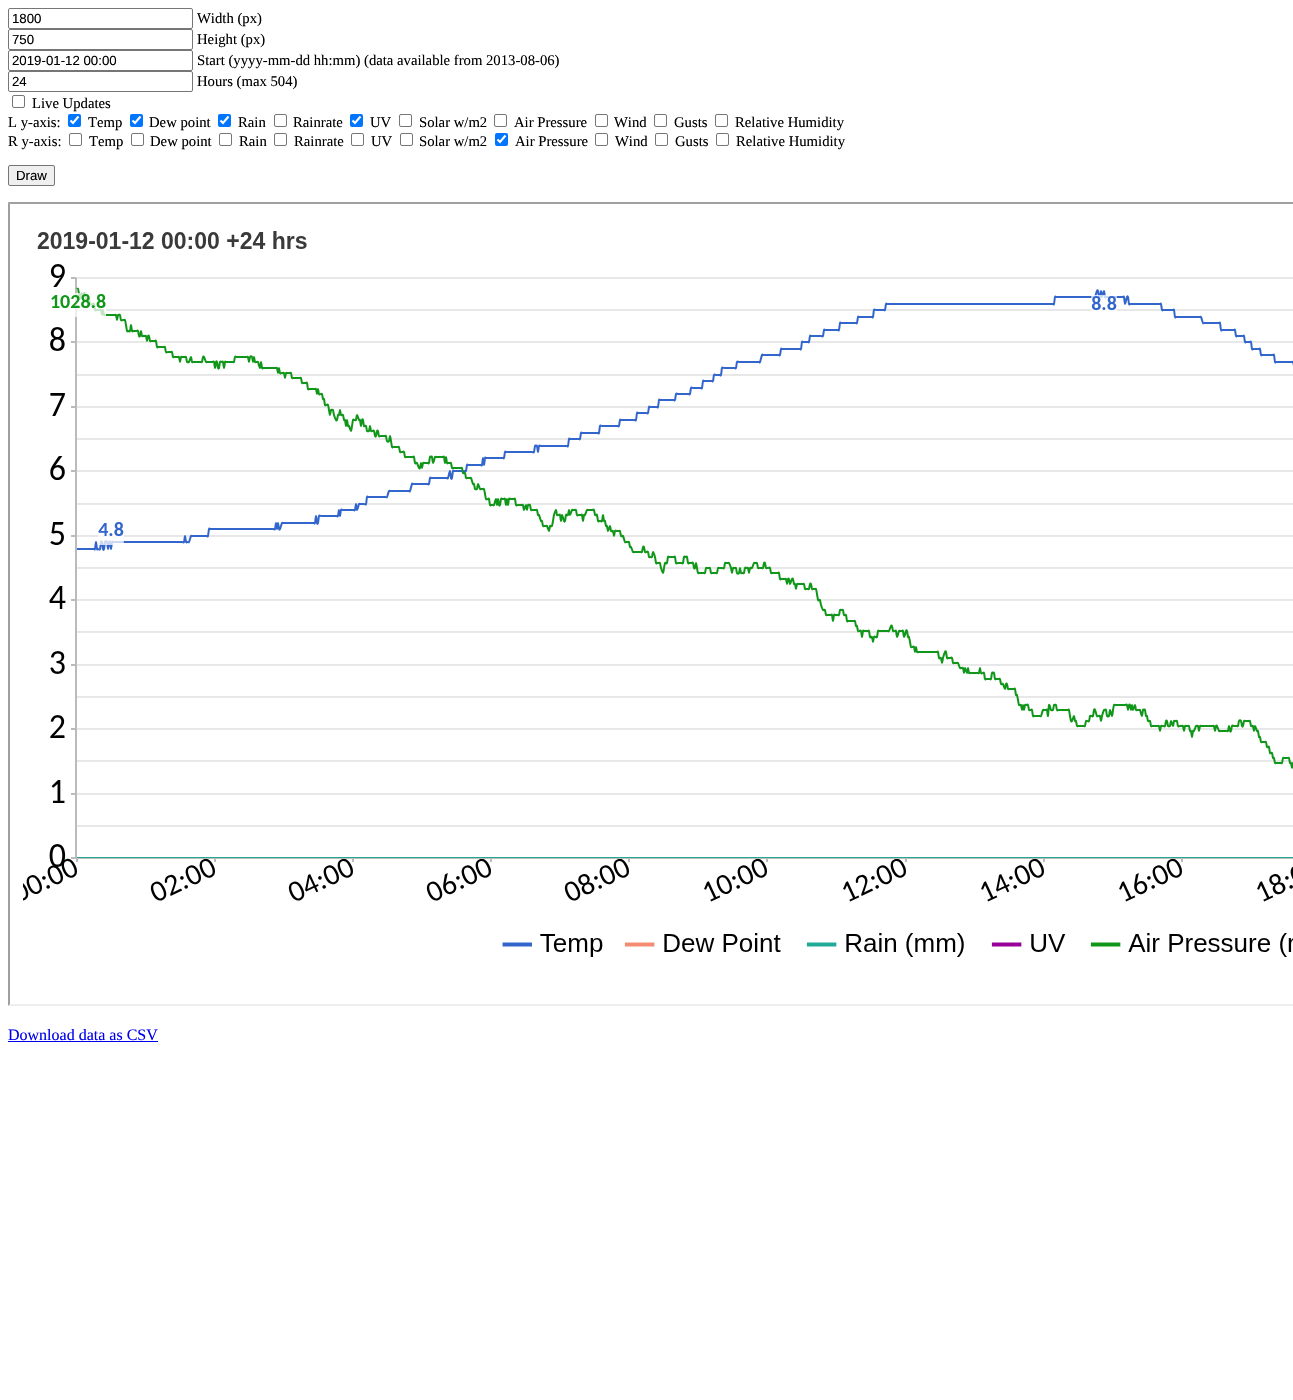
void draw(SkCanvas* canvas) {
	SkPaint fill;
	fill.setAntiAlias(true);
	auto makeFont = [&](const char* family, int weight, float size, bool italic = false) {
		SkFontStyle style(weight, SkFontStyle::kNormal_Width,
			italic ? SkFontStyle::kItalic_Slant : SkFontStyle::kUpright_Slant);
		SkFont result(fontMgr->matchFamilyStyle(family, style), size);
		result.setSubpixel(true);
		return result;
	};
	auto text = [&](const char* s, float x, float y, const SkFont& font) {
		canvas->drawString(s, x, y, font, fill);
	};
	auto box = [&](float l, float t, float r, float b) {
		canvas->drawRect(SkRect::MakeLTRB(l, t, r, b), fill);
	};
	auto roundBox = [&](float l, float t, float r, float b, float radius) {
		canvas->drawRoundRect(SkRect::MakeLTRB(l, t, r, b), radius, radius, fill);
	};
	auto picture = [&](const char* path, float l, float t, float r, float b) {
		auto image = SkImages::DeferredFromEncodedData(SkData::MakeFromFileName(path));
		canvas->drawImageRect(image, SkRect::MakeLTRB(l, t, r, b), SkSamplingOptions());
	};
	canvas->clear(0xFFFFFFFF);
	fill.setStyle(SkPaint::kStroke_Style);
	fill.setStrokeWidth(1);
	fill.setColor(0xFF767676);
	canvas->drawRoundRect(SkRect::MakeLTRB(8.5f, 8.5f, 192.5f, 28.5f), 1.5f, 1.5f, fill);
	canvas->drawRoundRect(SkRect::MakeLTRB(8.5f, 29.5f, 192.5f, 49.5f), 1.5f, 1.5f, fill);
	canvas->drawRoundRect(SkRect::MakeLTRB(8.5f, 50.5f, 192.5f, 70.5f), 1.5f, 1.5f, fill);
	canvas->drawRoundRect(SkRect::MakeLTRB(8.5f, 71.5f, 192.5f, 91.5f), 1.5f, 1.5f, fill);
	canvas->drawRoundRect(SkRect::MakeLTRB(12.5f, 95.5f, 24.5f, 107.5f), 1.5f, 1.5f, fill);
	fill.setStyle(SkPaint::kFill_Style);
	fill.setColor(0xFF0075FF);
	roundBox(68, 114, 81, 127, 2);
	fill.setStyle(SkPaint::kStroke_Style);
	fill.setStrokeWidth(2.1f);
	fill.setColor(0xFFFFFFFF);
	canvas->drawPath(SkPathBuilder().moveTo(70.5f, 120.5f).lineTo(73, 123).lineTo(78.5f, 116.5f).detach(), fill);
	fill.setStyle(SkPaint::kFill_Style);
	fill.setColor(0xFF0075FF);
	roundBox(130, 114, 143, 127, 2);
	fill.setStyle(SkPaint::kStroke_Style);
	fill.setColor(0xFFFFFFFF);
	canvas->drawPath(SkPathBuilder().moveTo(132.5f, 120.5f).lineTo(135, 123).lineTo(140.5f, 116.5f).detach(), fill);
	fill.setStyle(SkPaint::kFill_Style);
	fill.setColor(0xFF0075FF);
	roundBox(218, 114, 231, 127, 2);
	fill.setStyle(SkPaint::kStroke_Style);
	fill.setColor(0xFFFFFFFF);
	canvas->drawPath(SkPathBuilder().moveTo(220.5f, 120.5f).lineTo(223, 123).lineTo(228.5f, 116.5f).detach(), fill);
	fill.setStrokeWidth(1);
	fill.setColor(0xFF767676);
	canvas->drawRoundRect(SkRect::MakeLTRB(274.5f, 114.5f, 286.5f, 126.5f), 1.5f, 1.5f, fill);
	fill.setStyle(SkPaint::kFill_Style);
	fill.setColor(0xFF0075FF);
	roundBox(350, 114, 363, 127, 2);
	fill.setStyle(SkPaint::kStroke_Style);
	fill.setStrokeWidth(2.1f);
	fill.setColor(0xFFFFFFFF);
	canvas->drawPath(SkPathBuilder().moveTo(352.5f, 120.5f).lineTo(355, 123).lineTo(360.5f, 116.5f).detach(), fill);
	fill.setStrokeWidth(1);
	fill.setColor(0xFF767676);
	canvas->drawRoundRect(SkRect::MakeLTRB(399.5f, 114.5f, 411.5f, 126.5f), 1.5f, 1.5f, fill);
	canvas->drawRoundRect(SkRect::MakeLTRB(494.5f, 114.5f, 506.5f, 126.5f), 1.5f, 1.5f, fill);
	canvas->drawRoundRect(SkRect::MakeLTRB(595.5f, 114.5f, 607.5f, 126.5f), 1.5f, 1.5f, fill);
	canvas->drawRoundRect(SkRect::MakeLTRB(654.5f, 114.5f, 666.5f, 126.5f), 1.5f, 1.5f, fill);
	canvas->drawRoundRect(SkRect::MakeLTRB(715.5f, 114.5f, 727.5f, 126.5f), 1.5f, 1.5f, fill);
	canvas->drawRoundRect(SkRect::MakeLTRB(69.5f, 133.5f, 81.5f, 145.5f), 1.5f, 1.5f, fill);
	canvas->drawRoundRect(SkRect::MakeLTRB(131.5f, 133.5f, 143.5f, 145.5f), 1.5f, 1.5f, fill);
	canvas->drawRoundRect(SkRect::MakeLTRB(219.5f, 133.5f, 231.5f, 145.5f), 1.5f, 1.5f, fill);
	canvas->drawRoundRect(SkRect::MakeLTRB(274.5f, 133.5f, 286.5f, 145.5f), 1.5f, 1.5f, fill);
	canvas->drawRoundRect(SkRect::MakeLTRB(351.5f, 133.5f, 363.5f, 145.5f), 1.5f, 1.5f, fill);
	canvas->drawRoundRect(SkRect::MakeLTRB(400.5f, 133.5f, 412.5f, 145.5f), 1.5f, 1.5f, fill);
	fill.setStyle(SkPaint::kFill_Style);
	fill.setColor(0xFF0075FF);
	roundBox(495, 133, 508, 146, 2);
	fill.setStyle(SkPaint::kStroke_Style);
	fill.setStrokeWidth(2.1f);
	fill.setColor(0xFFFFFFFF);
	canvas->drawPath(SkPathBuilder().moveTo(497.5f, 139.5f).lineTo(500, 142).lineTo(505.5f, 135.5f).detach(), fill);
	fill.setStrokeWidth(1);
	fill.setColor(0xFF767676);
	canvas->drawRoundRect(SkRect::MakeLTRB(595.5f, 133.5f, 607.5f, 145.5f), 1.5f, 1.5f, fill);
	canvas->drawRoundRect(SkRect::MakeLTRB(655.5f, 133.5f, 667.5f, 145.5f), 1.5f, 1.5f, fill);
	canvas->drawRoundRect(SkRect::MakeLTRB(716.5f, 133.5f, 728.5f, 145.5f), 1.5f, 1.5f, fill);
	fill.setStyle(SkPaint::kFill_Style);
	fill.setColor(0xFFEFEFEF);
	canvas->drawRoundRect(SkRect::MakeLTRB(8.5f, 165.5f, 54.5f, 185.5f), 1.5f, 1.5f, fill);
	fill.setStyle(SkPaint::kStroke_Style);
	fill.setColor(0xFF767676);
	canvas->drawRoundRect(SkRect::MakeLTRB(8.5f, 165.5f, 54.5f, 185.5f), 1.5f, 1.5f, fill);
	fill.setStyle(SkPaint::kFill_Style);
	fill.setColor(0xFF9F9F9F);
	canvas->drawPath(SkPathBuilder().moveTo(8, 202).lineTo(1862, 202).lineTo(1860, 204).lineTo(10, 204).close().detach(), fill);
	fill.setColor(0xFFEEEEEE);
	canvas->drawPath(SkPathBuilder().moveTo(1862, 1006).lineTo(8, 1006).lineTo(10, 1004).lineTo(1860, 1004).close().detach(), fill);
	fill.setColor(0xFF9F9F9F);
	canvas->drawPath(SkPathBuilder().moveTo(8, 1006).lineTo(8, 202).lineTo(10, 204).lineTo(10, 1004).close().detach(), fill);
	picture("image0.png", 23, 231, 1293, 957);
	fill.setColor(0xFF0000EE);
	box(8, 1041, 158, 1042);
	auto font1 = makeFont("Liberation Sans", 400, 13.25f);
	fill.setColor(0xFF000000);
	text("1800", 12, 23, font1);
	auto font2 = makeFont("Liberation Serif", 400, 14.7f);
	text("Width (px)", 197, 23, font2);
	text("750", 12, 44, font1);
	text("Height (px)", 197, 44, font2);
	text("2019-01-12 00:00", 12, 65, font1);
	text("Start (yyyy-mm-dd hh:mm) (data available from 2013-08-06)", 197, 65, font2);
	text("24", 12, 86, font1);
	text("Hours (max 504)", 197, 86, font2);
	text("Live Updates", 32, 108, font2);
	text("L y-axis:", 8, 127, font2);
	text("Temp", 88, 127, font2);
	text("Dew point", 149, 127, font2);
	text("Rain", 238, 127, font2);
	text("Rainrate", 293, 127, font2);
	text("UV", 370, 127, font2);
	text("Solar w/m2", 419, 127, font2);
	text("Air Pressure", 514, 127, font2);
	text("Wind", 614, 127, font2);
	text("Gusts", 674, 127, font2);
	text("Relative Humidity", 735, 127, font2);
	text("R y-axis:", 8, 146, font2);
	text("Temp", 89, 146, font2);
	text("Dew point", 150, 146, font2);
	text("Rain", 239, 146, font2);
	text("Rainrate", 294, 146, font2);
	text("UV", 371, 146, font2);
	text("Solar w/m2", 419, 146, font2);
	text("Air Pressure", 515, 146, font2);
	text("Wind", 615, 146, font2);
	text("Gusts", 675, 146, font2);
	text("Relative Humidity", 736, 146, font2);
	text("Draw", 16, 180, font1);
	auto font3 = makeFont("Liberation Serif", 400, 16);
	fill.setColor(0xFF0000EE);
	text("Download data as CSV", 8, 1040, font3);
}
